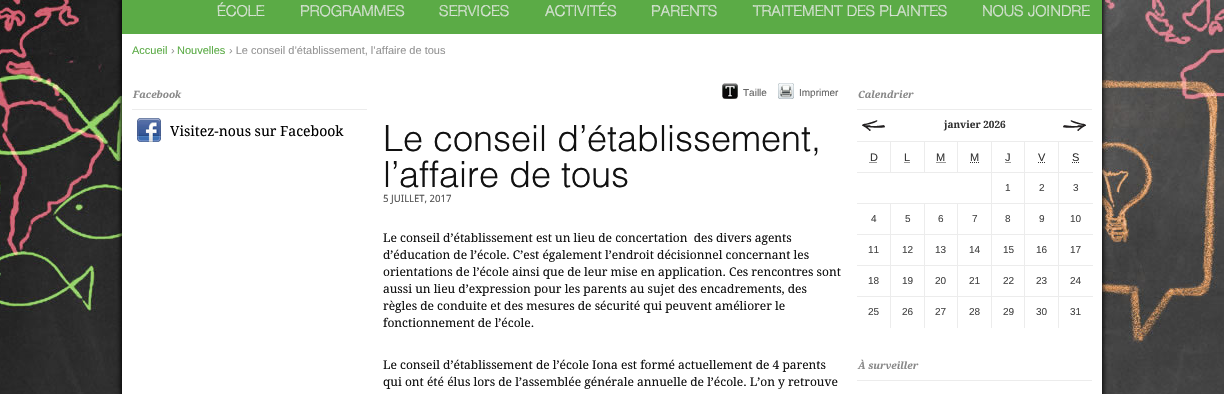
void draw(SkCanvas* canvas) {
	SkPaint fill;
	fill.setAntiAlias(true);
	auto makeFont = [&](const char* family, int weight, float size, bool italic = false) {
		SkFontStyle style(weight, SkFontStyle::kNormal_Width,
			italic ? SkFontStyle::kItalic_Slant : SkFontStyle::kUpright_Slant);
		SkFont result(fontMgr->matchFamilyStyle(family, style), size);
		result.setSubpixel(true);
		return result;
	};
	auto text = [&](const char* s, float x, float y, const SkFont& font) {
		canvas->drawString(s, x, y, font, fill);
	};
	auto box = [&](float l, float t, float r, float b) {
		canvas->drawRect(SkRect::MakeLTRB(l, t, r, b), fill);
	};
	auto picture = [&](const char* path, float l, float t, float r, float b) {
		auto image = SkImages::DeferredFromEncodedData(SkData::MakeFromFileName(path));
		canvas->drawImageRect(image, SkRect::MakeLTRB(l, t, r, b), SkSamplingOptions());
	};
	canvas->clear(0xFFFFFFFF);
	picture("image0.png", 0, 0, 1224, 394);
	fill.setColor(0xFF000000);
	fill.setMaskFilter(SkMaskFilter::MakeBlur(kNormal_SkBlurStyle, 2.5f));
	canvas->drawRect(SkRect::MakeLTRB(121, -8, 1103, 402), fill);
	fill.setMaskFilter(nullptr);
	fill.setColor(0xFFFFFFFF);
	box(122, 34, 1102, 394);
	fill.setColor(0xFF5BAB46);
	box(122, 0, 1102, 34);
	fill.setColor(0xFFECECEC);
	box(132, 109, 367, 110);
	picture("image1.png", 137, 118, 161, 142);
	picture("image2.png", 722, 83, 738, 99);
	picture("image3.png", 778, 83, 794, 99);
	box(857, 109, 1092, 110);
	picture("image4.png", 862, 120, 885, 131);
	picture("image5.png", 1063, 120, 1086, 131);
	box(1058, 141, 1093, 142);
	box(1058, 172, 1093, 173);
	box(1058, 203, 1093, 204);
	box(1058, 234, 1093, 235);
	box(1058, 265, 1093, 266);
	box(1058, 296, 1093, 297);
	box(1058, 296, 1059, 328);
	box(1024, 296, 1059, 297);
	box(1058, 265, 1059, 297);
	box(1024, 265, 1059, 266);
	box(1058, 234, 1059, 266);
	box(1024, 234, 1059, 235);
	box(1058, 203, 1059, 235);
	box(1024, 203, 1059, 204);
	box(1058, 172, 1059, 204);
	box(1024, 172, 1059, 173);
	box(1058, 141, 1059, 173);
	box(1024, 141, 1059, 142);
	box(1024, 296, 1025, 328);
	box(991, 296, 1025, 297);
	box(1024, 265, 1025, 297);
	box(991, 265, 1025, 266);
	box(1024, 234, 1025, 266);
	box(991, 234, 1025, 235);
	box(1024, 203, 1025, 235);
	box(991, 203, 1025, 204);
	box(1024, 172, 1025, 204);
	box(991, 172, 1025, 173);
	box(1024, 141, 1025, 173);
	box(991, 141, 1025, 142);
	box(991, 296, 992, 328);
	box(957, 296, 992, 297);
	box(991, 265, 992, 297);
	box(957, 265, 992, 266);
	box(991, 234, 992, 266);
	box(957, 234, 992, 235);
	box(991, 203, 992, 235);
	box(957, 203, 992, 204);
	box(991, 172, 992, 204);
	box(857, 172, 992, 173);
	box(991, 141, 992, 173);
	box(957, 141, 992, 142);
	box(957, 141, 958, 173);
	box(924, 141, 958, 142);
	box(924, 141, 925, 173);
	box(890, 141, 925, 142);
	box(890, 141, 891, 173);
	box(857, 141, 891, 142);
	fill.setStyle(SkPaint::kStroke_Style);
	fill.setStrokeWidth(1);
	fill.setColor(0xFF333333);
	fill.setPathEffect(SkDashPathEffect::Make({{1, 1}}, 0));
	canvas->drawPath(SkPathBuilder().moveTo(869.5f, 162.5f).lineTo(877.5f, 162.5f).detach(), fill);
	fill.setPathEffect(nullptr);
	canvas->drawPath(SkPathBuilder().moveTo(904.5f, 162.5f).lineTo(905.5f, 162.5f).moveTo(906.5f, 162.5f).lineTo(907.5f, 162.5f).moveTo(908.5f, 162.5f).lineTo(909.5f, 162.5f).moveTo(910.5f, 162.5f).lineTo(910.5f, 162.5f).detach(), fill);
	fill.setPathEffect(SkDashPathEffect::Make({{1, 1}}, 0));
	canvas->drawPath(SkPathBuilder().moveTo(936.5f, 162.5f).lineTo(945.5f, 162.5f).detach(), fill);
	fill.setPathEffect(nullptr);
	fill.setPathEffect(SkDashPathEffect::Make({{1, 1}}, 0));
	canvas->drawPath(SkPathBuilder().moveTo(970, 162.5f).lineTo(979, 162.5f).detach(), fill);
	fill.setPathEffect(nullptr);
	canvas->drawPath(SkPathBuilder().moveTo(1005.5f, 162.5f).lineTo(1006.5f, 162.5f).moveTo(1007.5f, 162.5f).lineTo(1008.5f, 162.5f).moveTo(1009.5f, 162.5f).lineTo(1010.5f, 162.5f).detach(), fill);
	fill.setPathEffect(SkDashPathEffect::Make({{1, 1}}, 0));
	canvas->drawPath(SkPathBuilder().moveTo(1038, 162.5f).lineTo(1045.5f, 162.5f).detach(), fill);
	fill.setPathEffect(nullptr);
	fill.setPathEffect(SkDashPathEffect::Make({{1, 1}}, 0));
	canvas->drawPath(SkPathBuilder().moveTo(1072, 162.5f).lineTo(1079, 162.5f).detach(), fill);
	fill.setPathEffect(nullptr);
	fill.setStyle(SkPaint::kFill_Style);
	fill.setColor(0xFFECECEC);
	box(957, 296, 958, 328);
	box(924, 296, 958, 297);
	box(957, 265, 958, 297);
	box(924, 265, 958, 266);
	box(957, 234, 958, 266);
	box(924, 234, 958, 235);
	box(957, 203, 958, 235);
	box(924, 203, 958, 204);
	box(924, 296, 925, 328);
	box(890, 296, 925, 297);
	box(924, 265, 925, 297);
	box(890, 265, 925, 266);
	box(924, 234, 925, 266);
	box(890, 234, 925, 235);
	box(924, 203, 925, 235);
	box(890, 203, 925, 204);
	box(890, 296, 891, 328);
	box(857, 296, 891, 297);
	box(890, 265, 891, 297);
	box(857, 265, 891, 266);
	box(890, 234, 891, 266);
	box(857, 234, 891, 235);
	box(890, 203, 891, 235);
	box(857, 203, 891, 204);
	box(857, 380, 1092, 381);
	auto font1 = makeFont("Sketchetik", 300, 15);
	fill.setColor(0xFFEBEBEB);
	text("ÉCOLE", 217, 16, font1);
	text("PROGRAMMES", 300, 16, font1);
	text("SERVICES", 439, 16, font1);
	text("ACTIVITÉS", 545, 16, font1);
	text("PARENTS", 651, 16, font1);
	text("TRAITEMENT DES PLAINTES", 753, 16, font1);
	text("NOUS JOINDRE", 982, 16, font1);
	auto font2 = makeFont("Liberation Sans", 400, 11);
	fill.setColor(0xFF5BAB46);
	text("Accueil", 132, 54, font2);
	fill.setColor(0xFF959595);
	text("›", 171, 54, font2);
	fill.setColor(0xFF5BAB46);
	text("Nouvelles", 177, 54, font2);
	fill.setColor(0xFF959595);
	text("› Le conseil d’établissement, l’affaire de tous", 229, 54, font2);
	auto font3 = makeFont("Droid Serif", 700, 10, true);
	fill.setColor(0xFF898989);
	text("Facebook", 133, 98, font3);
	auto font4 = makeFont("Droid Serif", 400, 14);
	fill.setColor(0xFF000000);
	text("Visitez-nous sur Facebook", 170, 136, font4);
	auto font5 = makeFont("Liberation Sans", 400, 10);
	fill.setColor(0xFF666666);
	text("Taille", 743, 96, font5);
	text("Imprimer", 799, 96, font5);
	auto font6 = makeFont("Helvetica", 300, 36);
	fill.setColor(0xFF111111);
	text("Le conseil d’établissement,", 383, 151, font6);
	text("l’affaire de tous", 383, 187, font6);
	auto font7 = makeFont("Droid Sans", 400, 10);
	fill.setColor(0xFF555555);
	text("5 JUILLET, 2017", 383, 202, font7);
	auto font8 = makeFont("Droid Serif", 400, 12);
	fill.setColor(0xFF111111);
	text("Le conseil d’établissement est un lieu de concertation  des divers agents", 383, 242, font8);
	text("d’éducation de l’école. C’est également l’endroit décisionnel concernant les", 383, 259, font8);
	text("orientations de l’école ainsi que de leur mise en application. Ces rencontres sont", 383, 276, font8);
	text("aussi un lieu d’expression pour les parents au sujet des encadrements, des", 383, 293, font8);
	text("règles de conduite et des mesures de sécurité qui peuvent améliorer le", 383, 310, font8);
	text("fonctionnement de l’école.", 383, 327, font8);
	text("Le conseil d’établissement de l’école Iona est formé actuellement de 4 parents", 383, 369, font8);
	text("qui ont été élus lors de l’assemblée générale annuelle de l’école. L’on y retrouve", 383, 386, font8);
	fill.setColor(0xFF898989);
	text("Calendrier", 858, 98, font3);
	auto font9 = makeFont("Droid Serif", 700, 10);
	fill.setColor(0xFF333333);
	text("janvier 2026", 944, 128, font9);
	text("D", 870, 161, font2);
	text("L", 904, 161, font2);
	text("M", 936, 161, font2);
	text("M", 970, 161, font2);
	text("J", 1005, 161, font2);
	text("V", 1038, 161, font2);
	text("S", 1072, 161, font2);
	fill.setColor(0xFF464646);
	text("1", 1005, 191, font5);
	text("2", 1039, 191, font5);
	text("3", 1073, 191, font5);
	text("4", 871, 222, font5);
	text("5", 905, 222, font5);
	text("6", 938, 222, font5);
	text("7", 972, 222, font5);
	text("8", 1005, 222, font5);
	text("9", 1039, 222, font5);
	text("10", 1070, 222, font5);
	text("11", 868, 253, font5);
	text("12", 902, 253, font5);
	text("13", 935, 253, font5);
	text("14", 969, 253, font5);
	text("15", 1003, 253, font5);
	text("16", 1036, 253, font5);
	text("17", 1070, 253, font5);
	text("18", 868, 284, font5);
	text("19", 902, 284, font5);
	text("20", 935, 284, font5);
	text("21", 969, 284, font5);
	text("22", 1003, 284, font5);
	text("23", 1036, 284, font5);
	text("24", 1070, 284, font5);
	text("25", 868, 315, font5);
	text("26", 902, 315, font5);
	text("27", 935, 315, font5);
	text("28", 969, 315, font5);
	text("29", 1003, 315, font5);
	text("30", 1036, 315, font5);
	text("31", 1070, 315, font5);
	fill.setColor(0xFF898989);
	text("À surveiller", 858, 369, font3);
}
